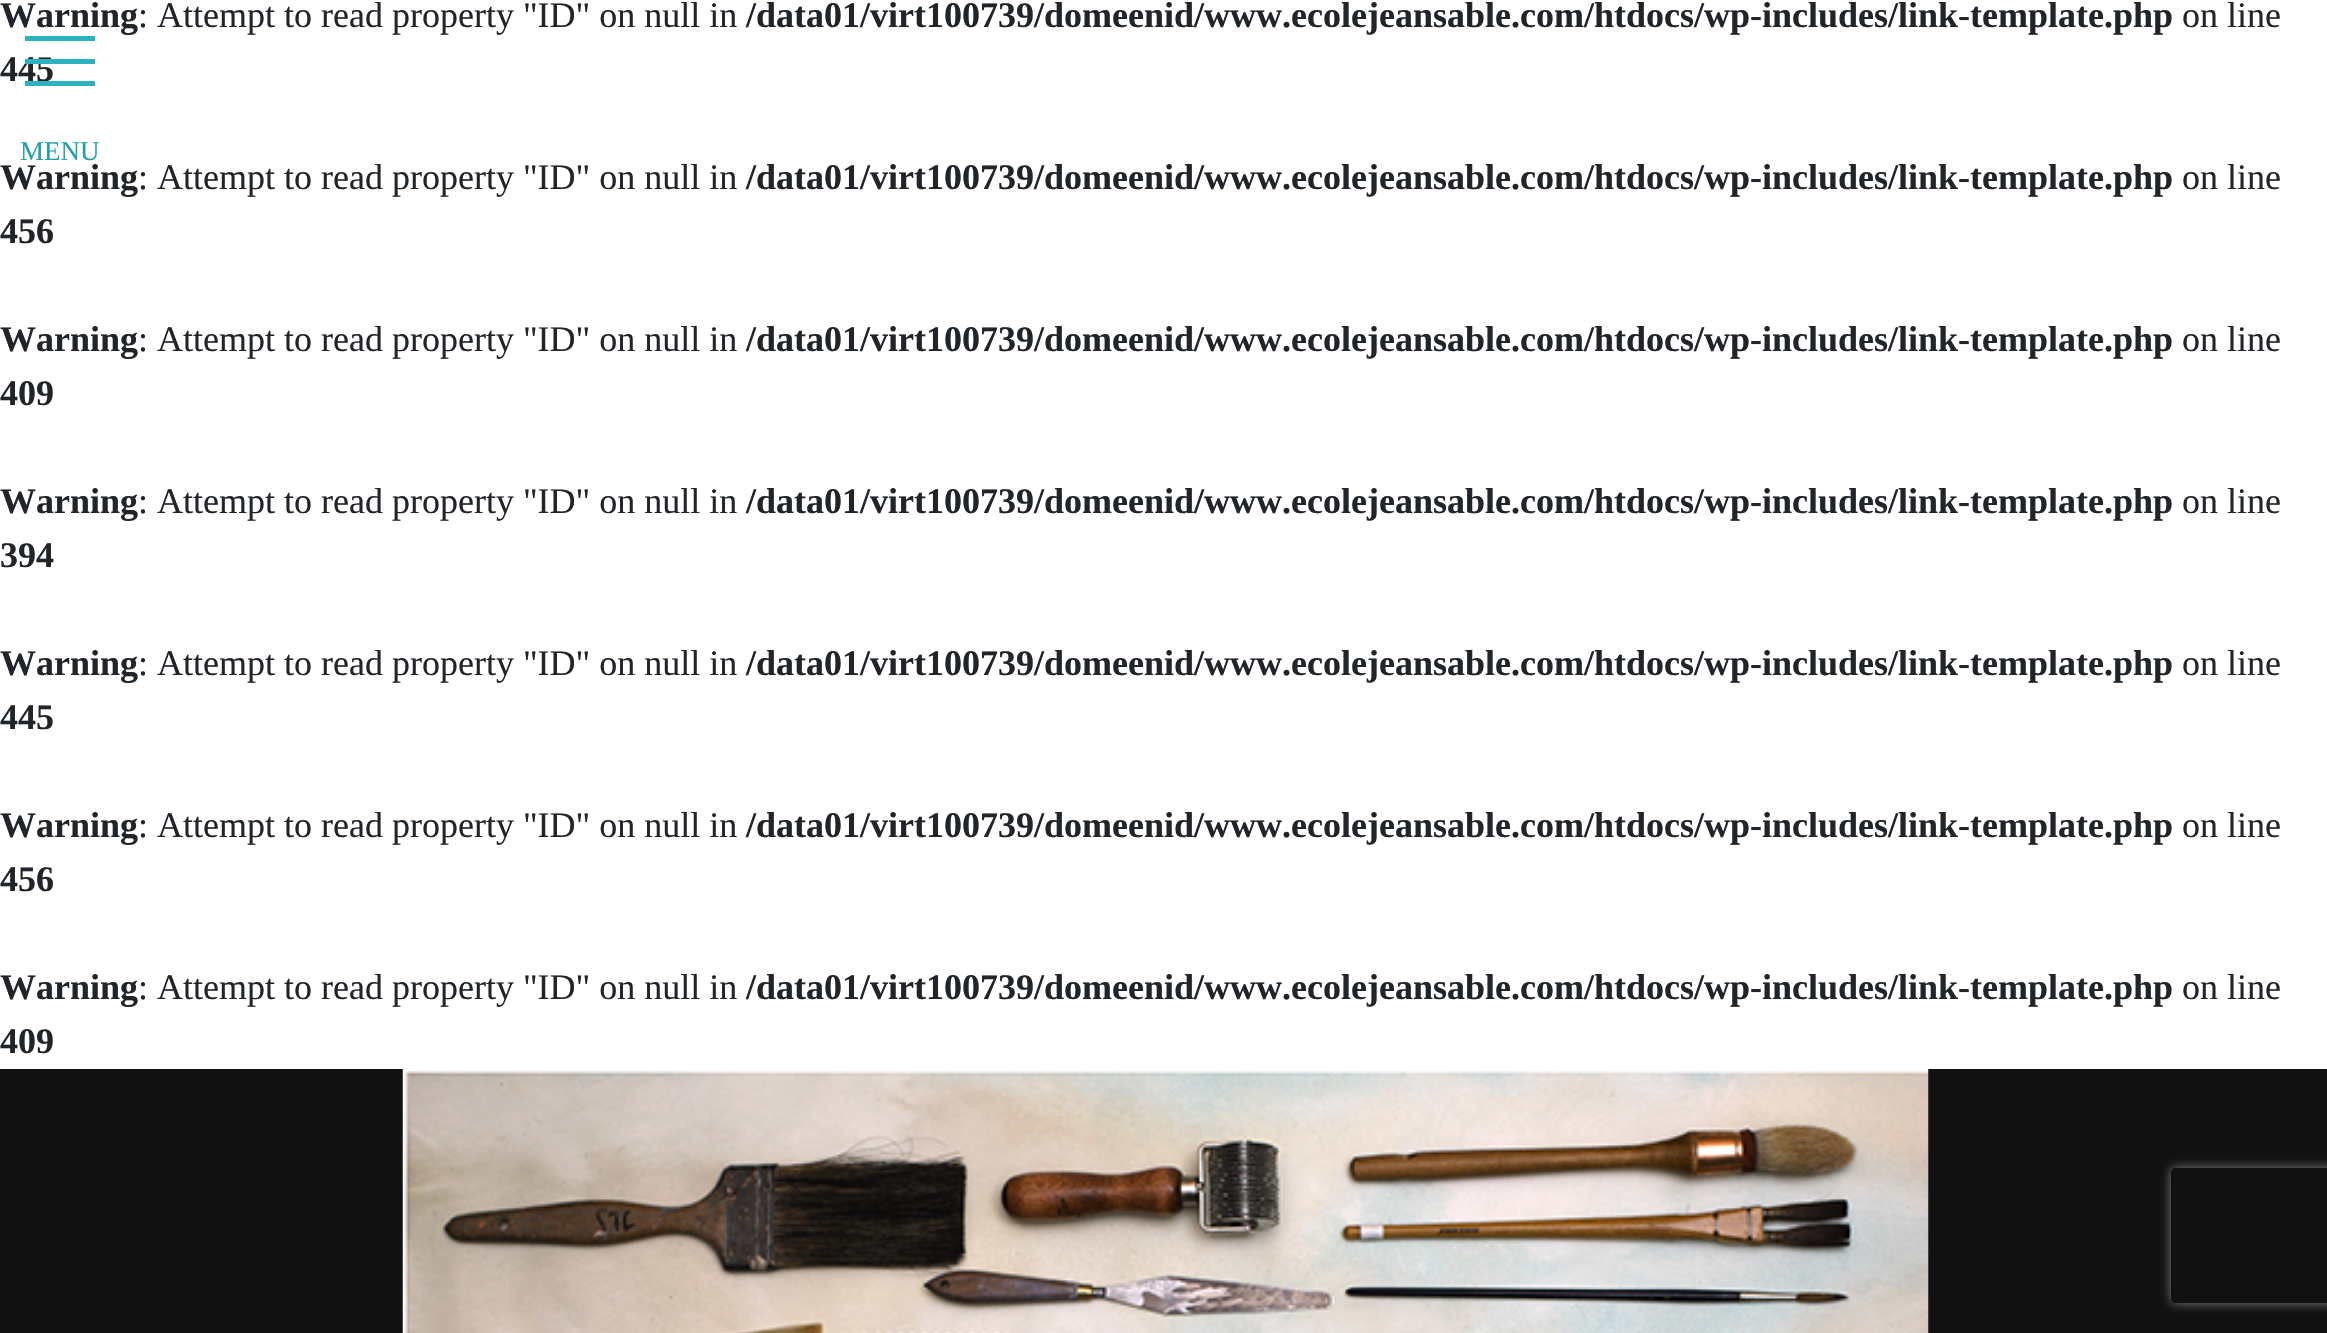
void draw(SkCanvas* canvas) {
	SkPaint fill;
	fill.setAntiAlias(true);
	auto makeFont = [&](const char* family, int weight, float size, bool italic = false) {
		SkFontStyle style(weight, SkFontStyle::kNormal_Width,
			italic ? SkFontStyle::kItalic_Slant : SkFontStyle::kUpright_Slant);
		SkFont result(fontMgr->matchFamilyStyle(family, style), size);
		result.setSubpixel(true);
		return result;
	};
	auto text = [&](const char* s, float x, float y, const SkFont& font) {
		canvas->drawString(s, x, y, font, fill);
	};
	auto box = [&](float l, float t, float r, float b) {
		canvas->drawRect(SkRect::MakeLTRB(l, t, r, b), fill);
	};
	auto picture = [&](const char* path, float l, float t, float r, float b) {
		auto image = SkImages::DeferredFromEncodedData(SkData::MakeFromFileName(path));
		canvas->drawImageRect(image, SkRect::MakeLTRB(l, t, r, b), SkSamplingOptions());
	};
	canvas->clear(0xFFFFFFFF);
	fill.setColor(0xFF2BB1C0);
	box(25, 36, 95, 41);
	fill.setColor(0xFF111111);
	box(0, 1069, 2327, 1333);
	picture("image0.png", 402, 1069, 1929, 1333);
	canvas->save();
	canvas->clipPath(SkPathBuilder(SkPathFillType::kEvenOdd).moveTo(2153, 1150).lineTo(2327, 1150).lineTo(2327, 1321).lineTo(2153, 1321).close().moveTo(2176, 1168).lineTo(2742, 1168).cubicTo(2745, 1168, 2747, 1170, 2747, 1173).lineTo(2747, 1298).cubicTo(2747, 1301, 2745, 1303, 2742, 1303).lineTo(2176, 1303).cubicTo(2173, 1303, 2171, 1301, 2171, 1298).lineTo(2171, 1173).cubicTo(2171, 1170, 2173, 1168, 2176, 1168).close().detach(), true);
	fill.setColor(0xFF808080);
	fill.setMaskFilter(SkMaskFilter::MakeBlur(kNormal_SkBlurStyle, 5.5f));
	canvas->drawRoundRect(SkRect::MakeLTRB(2171, 1168, 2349, 1303), 5, 5, fill);
	fill.setMaskFilter(nullptr);
	canvas->restore();
	auto font1 = makeFont("Liberation Serif", 700, 36);
	fill.setColor(0xFF212529);
	text("Warning", 0, 27, font1);
	auto font2 = makeFont("Liberation Serif", 400, 36);
	text(": Attempt to read property \"ID\" on null in", 138, 27, font2);
	text("/data01/virt100739/domeenid/www.ecolejeansable.com/htdocs/wp-includes/link-template.php", 746, 27, font1);
	text("on line", 2182, 27, font2);
	text("445", 0, 81, font1);
	fill.setColor(0xFF2BB1C0);
	box(25, 59, 95, 64);
	box(25, 81, 95, 86);
	auto font3 = makeFont("Liberation Serif", 400, 27);
	fill.setColor(0xFF239FAA);
	text("MENU", 20, 160, font3);
	fill.setColor(0xFF212529);
	text("Warning", 0, 189, font1);
	text(": Attempt to read property \"ID\" on null in", 138, 189, font2);
	text("/data01/virt100739/domeenid/www.ecolejeansable.com/htdocs/wp-includes/link-template.php", 746, 189, font1);
	text("on line", 2182, 189, font2);
	text("456", 0, 243, font1);
	text("Warning", 0, 351, font1);
	text(": Attempt to read property \"ID\" on null in", 138, 351, font2);
	text("/data01/virt100739/domeenid/www.ecolejeansable.com/htdocs/wp-includes/link-template.php", 746, 351, font1);
	text("on line", 2182, 351, font2);
	text("409", 0, 405, font1);
	text("Warning", 0, 513, font1);
	text(": Attempt to read property \"ID\" on null in", 138, 513, font2);
	text("/data01/virt100739/domeenid/www.ecolejeansable.com/htdocs/wp-includes/link-template.php", 746, 513, font1);
	text("on line", 2182, 513, font2);
	text("394", 0, 567, font1);
	text("Warning", 0, 675, font1);
	text(": Attempt to read property \"ID\" on null in", 138, 675, font2);
	text("/data01/virt100739/domeenid/www.ecolejeansable.com/htdocs/wp-includes/link-template.php", 746, 675, font1);
	text("on line", 2182, 675, font2);
	text("445", 0, 729, font1);
	text("Warning", 0, 837, font1);
	text(": Attempt to read property \"ID\" on null in", 138, 837, font2);
	text("/data01/virt100739/domeenid/www.ecolejeansable.com/htdocs/wp-includes/link-template.php", 746, 837, font1);
	text("on line", 2182, 837, font2);
	text("456", 0, 891, font1);
	text("Warning", 0, 999, font1);
	text(": Attempt to read property \"ID\" on null in", 138, 999, font2);
	text("/data01/virt100739/domeenid/www.ecolejeansable.com/htdocs/wp-includes/link-template.php", 746, 999, font1);
	text("on line", 2182, 999, font2);
	text("409", 0, 1053, font1);
}
